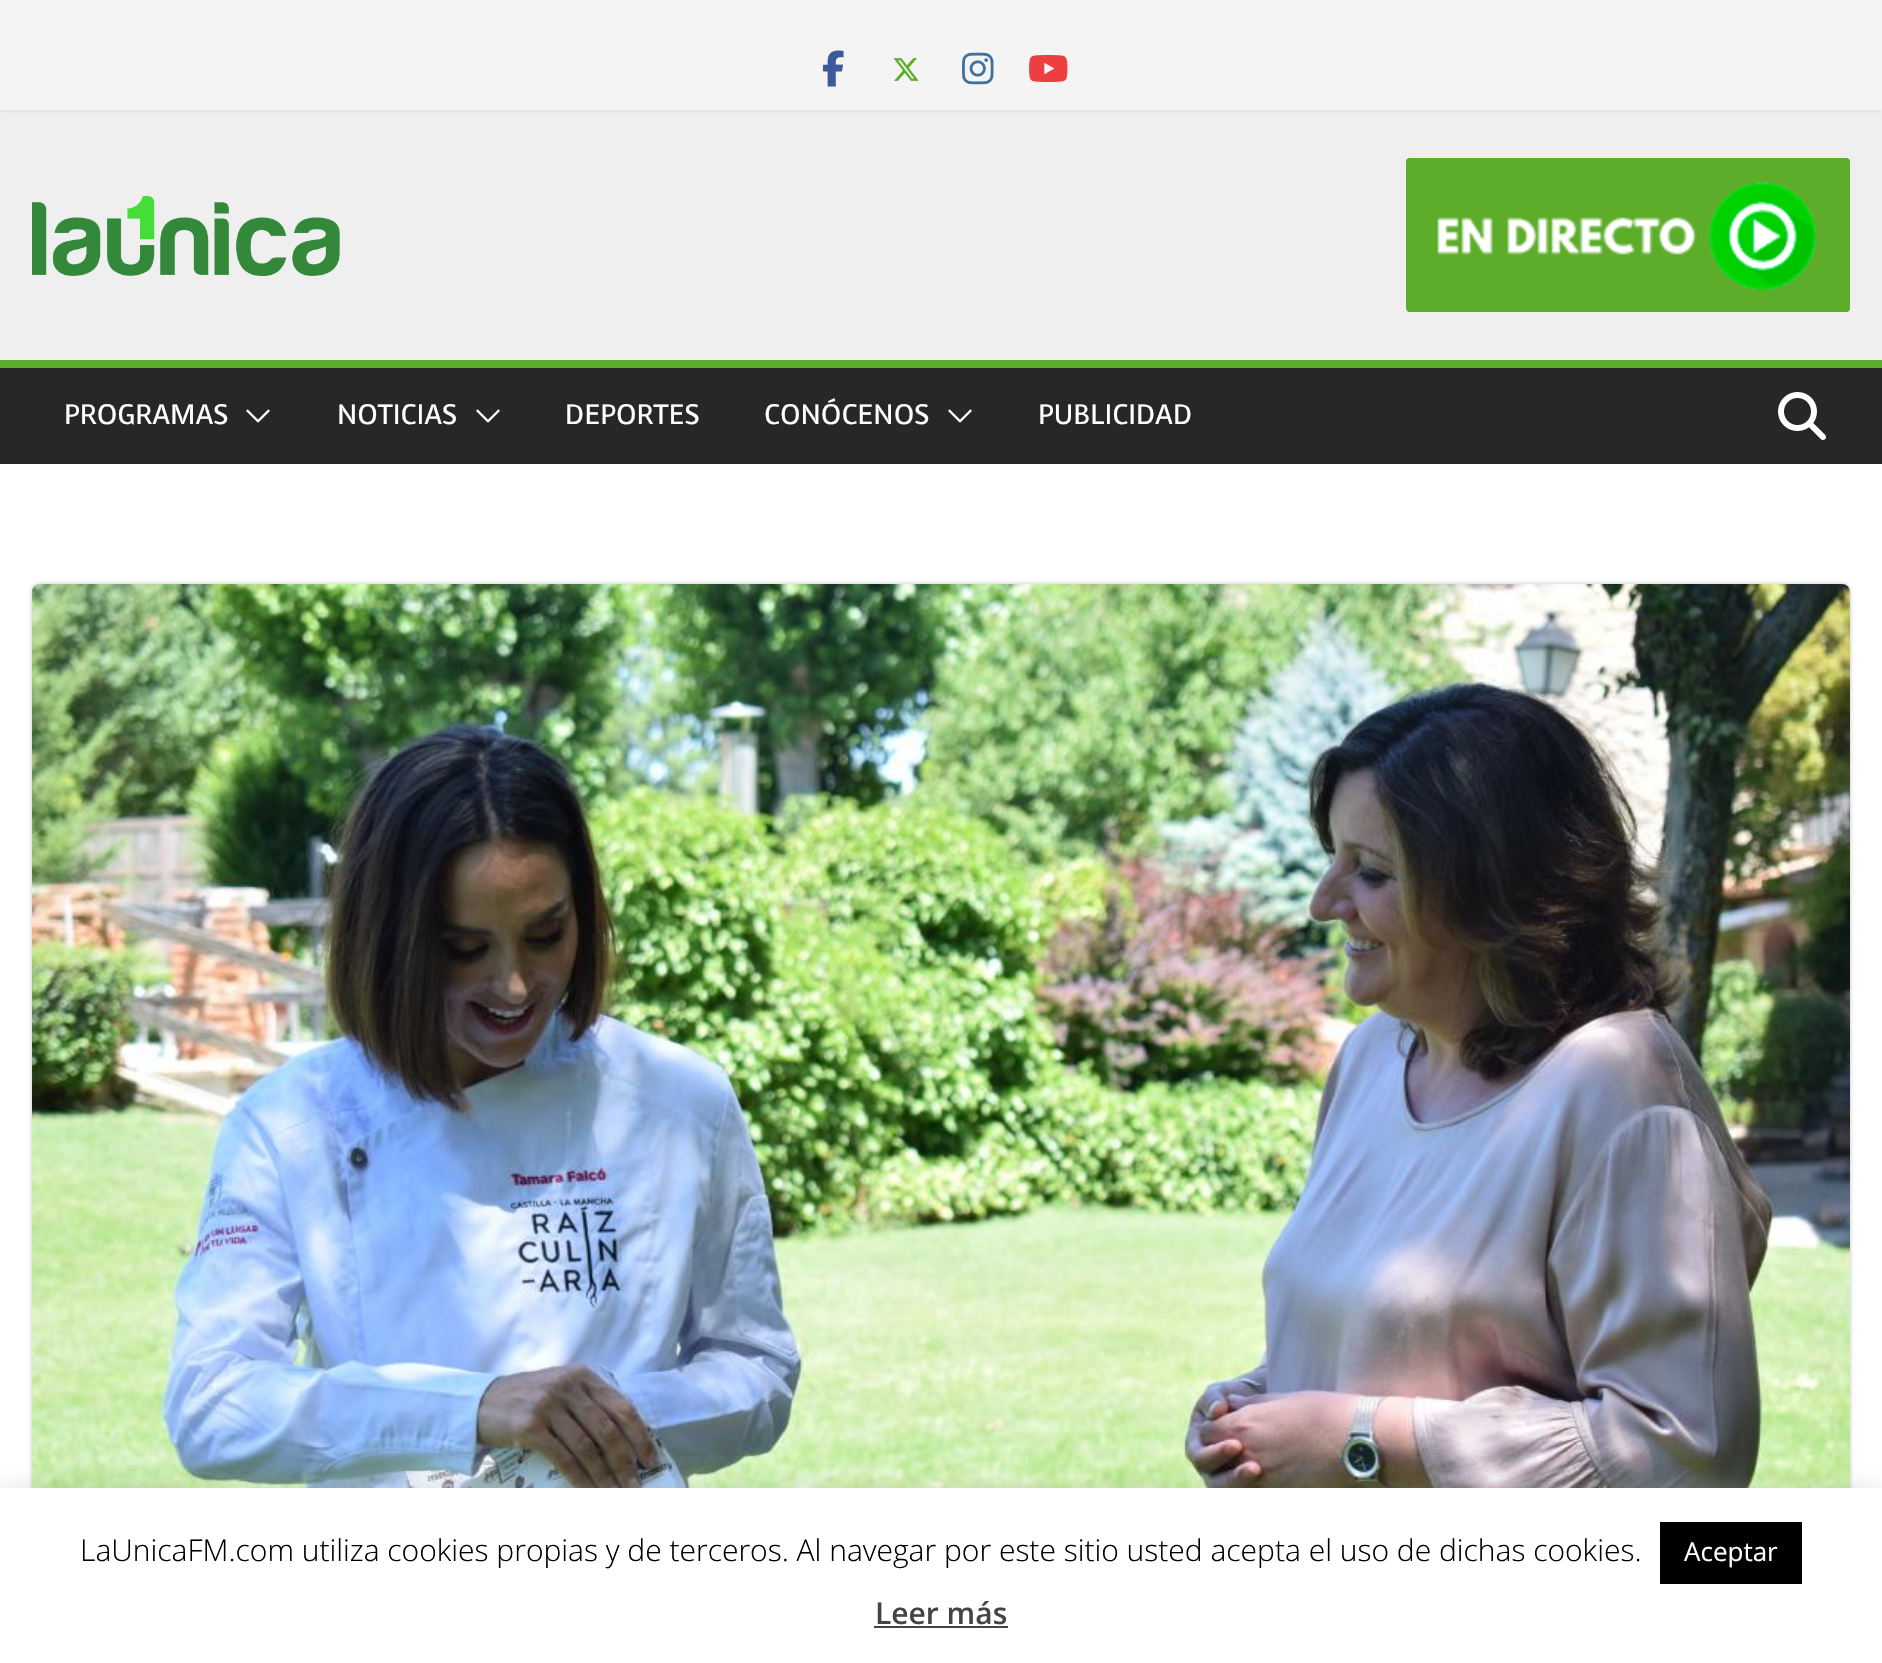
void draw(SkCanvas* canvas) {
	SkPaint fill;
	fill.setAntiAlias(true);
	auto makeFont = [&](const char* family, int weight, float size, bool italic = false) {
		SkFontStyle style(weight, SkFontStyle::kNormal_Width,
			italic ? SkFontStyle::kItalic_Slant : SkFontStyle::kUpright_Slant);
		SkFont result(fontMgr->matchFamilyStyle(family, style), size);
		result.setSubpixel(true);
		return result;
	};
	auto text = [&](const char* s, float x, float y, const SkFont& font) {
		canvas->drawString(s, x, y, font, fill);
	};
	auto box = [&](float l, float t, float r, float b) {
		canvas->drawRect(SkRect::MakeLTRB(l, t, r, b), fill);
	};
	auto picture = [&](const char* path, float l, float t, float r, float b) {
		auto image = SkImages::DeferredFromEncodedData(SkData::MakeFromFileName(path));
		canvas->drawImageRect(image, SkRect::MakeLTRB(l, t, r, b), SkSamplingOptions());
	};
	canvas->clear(0xFFEFEFEF);
	fill.setColor(0x1A000000);
	fill.setMaskFilter(SkMaskFilter::MakeBlur(kNormal_SkBlurStyle, 2));
	canvas->drawRect(SkRect::MakeLTRB(0, 0, 1882, 110), fill);
	fill.setMaskFilter(nullptr);
	fill.setColor(0xFFF4F4F5);
	box(0, 0, 1882, 110);
	picture("image0.png", 823, 50, 844, 87);
	picture("image1.png", 893, 58, 919, 81);
	picture("image2.png", 962, 52, 994, 85);
	picture("image3.png", 1029, 55, 1068, 82);
	picture("image4.png", 32, 196, 340, 276);
	fill.setColor(0xFF5DAD2B);
	canvas->drawRoundRect(SkRect::MakeLTRB(1407, 159, 1849, 311), 3, 3, fill);
	fill.setStyle(SkPaint::kStroke_Style);
	fill.setStrokeWidth(2);
	canvas->drawRoundRect(SkRect::MakeLTRB(1407, 159, 1849, 311), 3, 3, fill);
	picture("image5.png", 1437, 181, 1817, 291);
	fill.setStyle(SkPaint::kFill_Style);
	fill.setColor(0xFF27272A);
	box(0, 368, 1882, 464);
	fill.setColor(0xFF5DAD2B);
	box(0, 360, 1882, 368);
	picture("image6.png", 246, 409, 270, 423);
	picture("image6.png", 476, 409, 500, 423);
	picture("image6.png", 948, 409, 972, 423);
	picture("image7.png", 1778, 392, 1826, 440);
	fill.setColor(0xFFFFFFFF);
	box(0, 464, 1882, 1488);
	fill.setColor(0x3D000000);
	fill.setMaskFilter(SkMaskFilter::MakeBlur(kNormal_SkBlurStyle, 2));
	canvas->drawRoundRect(SkRect::MakeLTRB(32, 584, 1850, 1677), 8, 8, fill);
	fill.setMaskFilter(nullptr);
	picture("image8.png", 32, 584, 1850, 1488);
	fill.setColor(0x4DACABAB);
	fill.setMaskFilter(SkMaskFilter::MakeBlur(kNormal_SkBlurStyle, 10));
	canvas->drawRect(SkRect::MakeLTRB(0, 1486, 1882, 1662), fill);
	fill.setMaskFilter(nullptr);
	fill.setColor(0xFFFFFFFF);
	box(0, 1488, 1882, 1663);
	fill.setColor(0xFF000000);
	box(1660, 1522, 1802, 1584);
	fill.setColor(0xFF444444);
	box(874, 1626, 1008, 1628);
	auto font1 = makeFont("Voces", 400, 28);
	fill.setColor(0xFFFFFFFF);
	text("PROGRAMAS", 64, 424, font1);
	text("NOTICIAS", 337, 424, font1);
	text("DEPORTES", 565, 424, font1);
	text("CONÓCENOS", 764, 424, font1);
	text("PUBLICIDAD", 1038, 424, font1);
	auto font2 = makeFont("Open Sans", 300, 30);
	fill.setColor(0xFF000000);
	text("LaUnicaFM.com utiliza cookies propias y de terceros. Al navegar por este sitio usted acepta el uso de dichas cookies.", 80, 1561, font2);
	auto font3 = makeFont("Open Sans", 400, 26);
	fill.setColor(0xFFFFFFFF);
	text("Aceptar", 1684, 1561, font3);
	auto font4 = makeFont("Open Sans", 600, 30);
	fill.setColor(0xFF444444);
	text("Leer más", 875, 1624, font4);
}
